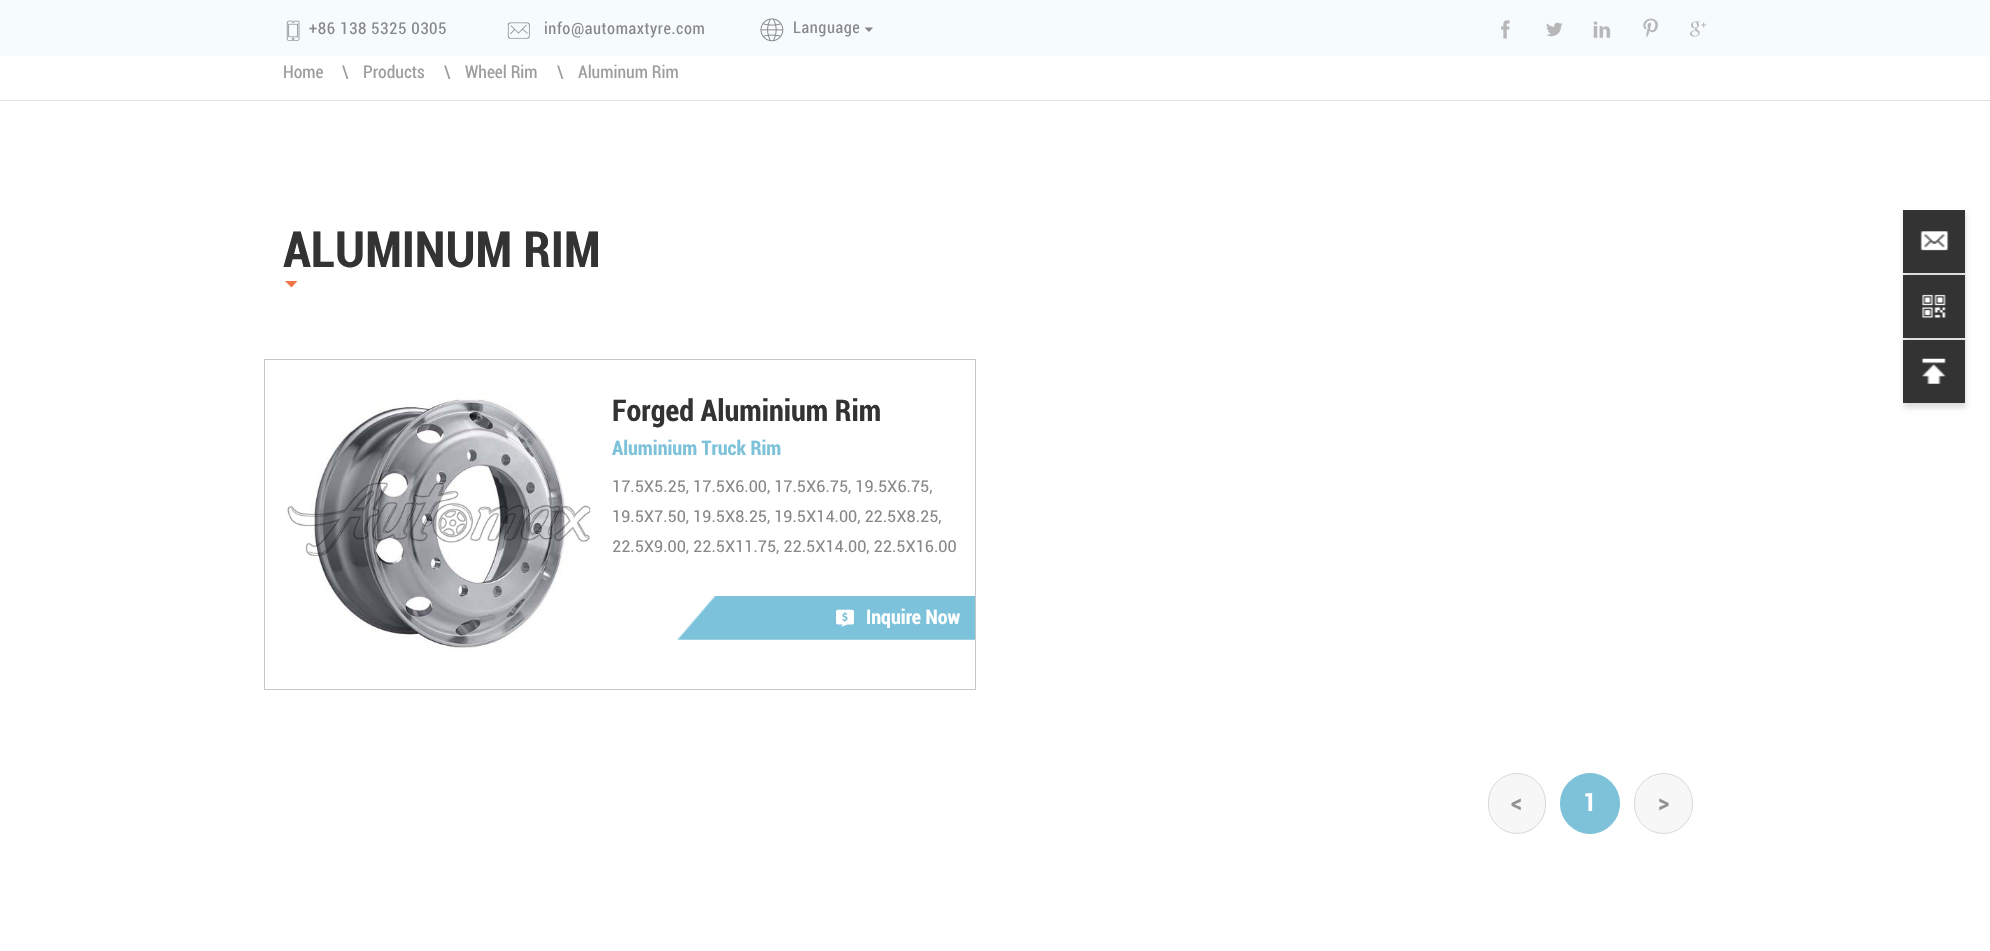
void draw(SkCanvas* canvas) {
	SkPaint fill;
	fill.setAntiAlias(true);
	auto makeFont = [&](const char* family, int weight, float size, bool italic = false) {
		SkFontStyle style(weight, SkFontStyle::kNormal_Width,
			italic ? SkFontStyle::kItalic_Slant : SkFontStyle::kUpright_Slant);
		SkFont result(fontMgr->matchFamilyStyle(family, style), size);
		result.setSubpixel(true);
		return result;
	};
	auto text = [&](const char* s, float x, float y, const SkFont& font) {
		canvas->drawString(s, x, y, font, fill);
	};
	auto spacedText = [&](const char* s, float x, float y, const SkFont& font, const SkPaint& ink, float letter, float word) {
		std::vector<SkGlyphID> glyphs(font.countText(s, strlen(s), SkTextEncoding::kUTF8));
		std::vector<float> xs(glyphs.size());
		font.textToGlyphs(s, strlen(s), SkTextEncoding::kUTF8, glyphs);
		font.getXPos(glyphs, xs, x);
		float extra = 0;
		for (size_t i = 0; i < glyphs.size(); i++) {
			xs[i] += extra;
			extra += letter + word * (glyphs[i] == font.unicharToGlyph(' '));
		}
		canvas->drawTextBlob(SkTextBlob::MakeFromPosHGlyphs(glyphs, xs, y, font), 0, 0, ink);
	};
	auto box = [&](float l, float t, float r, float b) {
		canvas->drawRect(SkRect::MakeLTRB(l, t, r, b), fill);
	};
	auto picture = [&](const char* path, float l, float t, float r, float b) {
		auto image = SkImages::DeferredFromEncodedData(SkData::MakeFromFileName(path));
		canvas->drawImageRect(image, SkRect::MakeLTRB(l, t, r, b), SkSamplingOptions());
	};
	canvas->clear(0xFFFFFFFF);
	fill.setColor(0xFFF6FCFE);
	box(0, 0, 1990, 56);
	picture("image0.png", 286, 20, 300, 41);
	picture("image1.png", 507, 22, 530, 39);
	picture("image2.png", 760, 18, 784, 42);
	fill.setColor(0xFF838383);
	canvas->drawPath(SkPathBuilder().moveTo(873, 27.5f).lineTo(869, 32).lineTo(864.5f, 27.5f).close().detach(), fill);
	picture("image3.png", 1501, 20, 1510, 39);
	picture("image4.png", 1546, 22, 1563, 37);
	picture("image5.png", 1593, 21, 1611, 38);
	picture("image6.png", 1643, 18, 1658, 38);
	picture("image7.png", 1690, 21, 1707, 37);
	fill.setColor(0xFFE1E1E1);
	box(0, 100, 1990, 101);
	fill.setColor(0xFFF4744A);
	canvas->drawPath(SkPathBuilder().moveTo(297.5f, 281).lineTo(291.5f, 287.5f).lineTo(285, 281).close().detach(), fill);
	fill.setStyle(SkPaint::kStroke_Style);
	fill.setStrokeWidth(1);
	fill.setColor(0xFFC7C7C7);
	canvas->drawRect(SkRect::MakeLTRB(264.5f, 359.5f, 975.5f, 689.5f), fill);
	picture("image8.png", 287, 393, 591, 649);
	picture("image9.png", 677, 596, 975, 640);
	picture("image10.png", 836, 609, 854, 627);
	fill.setStyle(SkPaint::kFill_Style);
	fill.setColor(0xFFF7F7F7);
	canvas->drawRoundRect(SkRect::MakeLTRB(1488.5f, 773.5f, 1545.5f, 833.5f), 28.5f, 28.5f, fill);
	fill.setStyle(SkPaint::kStroke_Style);
	fill.setColor(0xFFD9D9D9);
	canvas->drawRoundRect(SkRect::MakeLTRB(1488.5f, 773.5f, 1545.5f, 833.5f), 28.5f, 28.5f, fill);
	fill.setStyle(SkPaint::kFill_Style);
	fill.setColor(0xFF7EC2D9);
	canvas->drawRoundRect(SkRect::MakeLTRB(1560.5f, 773.5f, 1619.5f, 833.5f), 29.5f, 29.5f, fill);
	fill.setStyle(SkPaint::kStroke_Style);
	canvas->drawRoundRect(SkRect::MakeLTRB(1560.5f, 773.5f, 1619.5f, 833.5f), 29.5f, 29.5f, fill);
	fill.setStyle(SkPaint::kFill_Style);
	fill.setColor(0xFFF7F7F7);
	canvas->drawRoundRect(SkRect::MakeLTRB(1634.5f, 773.5f, 1692.5f, 833.5f), 29, 29, fill);
	fill.setStyle(SkPaint::kStroke_Style);
	fill.setColor(0xFFD9D9D9);
	canvas->drawRoundRect(SkRect::MakeLTRB(1634.5f, 773.5f, 1692.5f, 833.5f), 29, 29, fill);
	fill.setStyle(SkPaint::kFill_Style);
	fill.setColor(0x21000000);
	fill.setMaskFilter(SkMaskFilter::MakeBlur(kNormal_SkBlurStyle, 2.5f));
	canvas->drawRect(SkRect::MakeLTRB(1904, 213, 1966, 408), fill);
	fill.setMaskFilter(nullptr);
	fill.setColor(0xFF333333);
	box(1903, 210, 1965, 273);
	picture("image11.png", 1920, 231, 1949, 251);
	box(1903, 275, 1965, 338);
	picture("image12.png", 1921, 294, 1946, 318);
	box(1903, 340, 1965, 403);
	picture("image13.png", 1921, 358, 1946, 384);
	auto font1 = makeFont("Roboto", 400, 16.25f);
	fill.setColor(0xFF888888);
	spacedText("+86 138 5325 0305", 309, 34, font1, fill, 0.6f, 0);
	spacedText("info@automaxtyre.com", 544, 34, font1, fill, 0.6f, 0);
	spacedText("Language", 793, 33, font1, fill, 0.6f, 0);
	auto font2 = makeFont("Roboto", 400, 17.5f);
	fill.setColor(0xFF9C9C9C);
	text("Home", 283, 78, font2);
	text("\\", 342, 78, font2);
	text("Products", 363, 78, font2);
	text("\\", 444, 78, font2);
	text("Wheel Rim", 465, 78, font2);
	text("\\", 557, 78, font2);
	text("Aluminum Rim", 578, 78, font2);
	auto font3 = makeFont("Roboto", 700, 50);
	fill.setColor(0xFF333333);
	text("ALUMINUM RIM", 283, 267, font3);
	auto font4 = makeFont("Roboto", 700, 30);
	text("Forged Aluminium Rim", 612, 421, font4);
	auto font5 = makeFont("Roboto", 700, 20);
	fill.setColor(0xFF7EC2D9);
	text("Aluminium Truck Rim", 612, 455, font5);
	auto font6 = makeFont("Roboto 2", 400, 16.25f);
	fill.setColor(0xFF888888);
	text("17.5X5.25, 17.5X6.00, 17.5X6.75, 19.5X6.75,", 612, 492, font6);
	text("19.5X7.50, 19.5X8.25, 19.5X14.00, 22.5X8.25,", 612, 522, font6);
	text("22.5X9.00, 22.5X11.75, 22.5X14.00, 22.5X16.00", 612, 552, font6);
	fill.setColor(0xFFFFFFFF);
	text("Inquire Now", 866, 624, font5);
	auto font7 = makeFont("Roboto", 700, 25);
	fill.setColor(0xFF929292);
	text("<", 1511, 811, font7);
	fill.setColor(0xFFFFFFFF);
	text("1", 1583, 811, font7);
	fill.setColor(0xFF929292);
	text(">", 1658, 811, font7);
}
